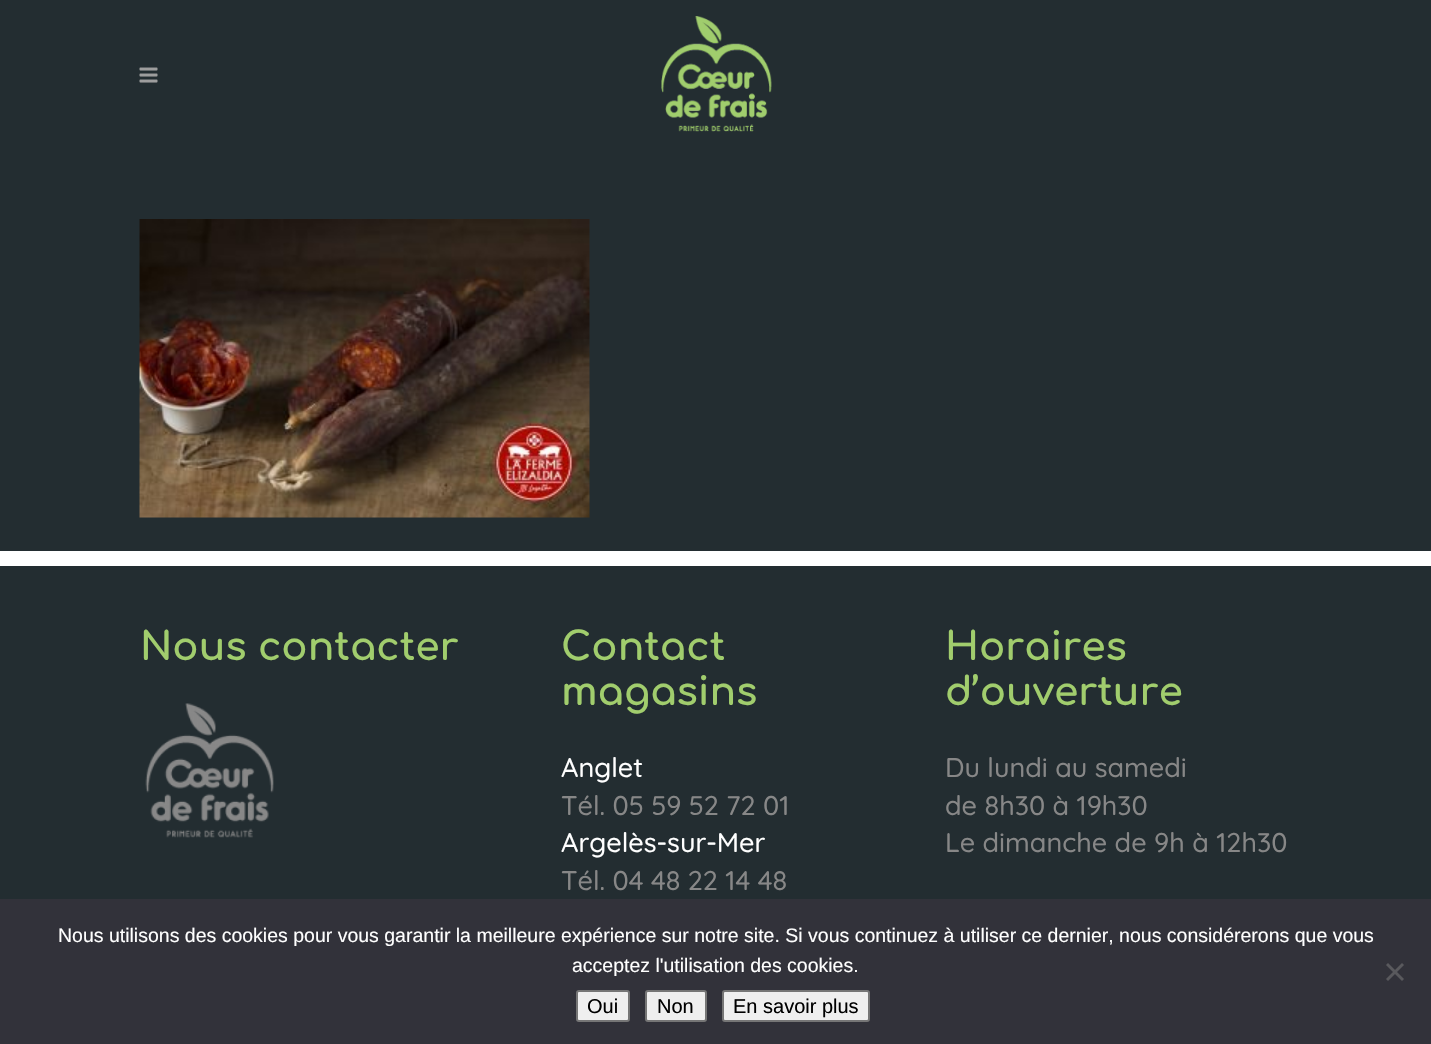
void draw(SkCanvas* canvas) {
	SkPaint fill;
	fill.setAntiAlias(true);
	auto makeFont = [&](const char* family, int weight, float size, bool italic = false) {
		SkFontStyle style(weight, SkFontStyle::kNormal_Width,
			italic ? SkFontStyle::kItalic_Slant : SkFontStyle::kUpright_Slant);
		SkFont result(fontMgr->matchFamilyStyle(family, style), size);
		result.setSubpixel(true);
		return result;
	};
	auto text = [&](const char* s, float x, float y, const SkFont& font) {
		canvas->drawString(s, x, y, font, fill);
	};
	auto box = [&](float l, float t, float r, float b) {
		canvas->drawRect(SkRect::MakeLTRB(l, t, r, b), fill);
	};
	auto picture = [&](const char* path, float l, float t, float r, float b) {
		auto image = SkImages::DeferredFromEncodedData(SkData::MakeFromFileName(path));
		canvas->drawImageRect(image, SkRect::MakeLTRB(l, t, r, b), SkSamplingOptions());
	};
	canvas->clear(0xFF232D31);
	picture("image0.png", 139, 67, 158, 83);
	picture("image1.png", 661, 16, 772, 132);
	picture("image2.png", 139, 219, 590, 518);
	fill.setColor(0xFFFFFFFF);
	box(0, 551, 1431, 566);
	picture("image3.png", 145, 703, 274, 838);
	fill.setColor(0xFF32323A);
	box(0, 899, 1431, 1044);
	fill.setColor(0xFF59595D);
	canvas->drawPath(SkPathBuilder().moveTo(1402, 963).lineTo(1404, 965).lineTo(1388, 981).lineTo(1386, 979).close().detach(), fill);
	canvas->drawPath(SkPathBuilder().moveTo(1386, 965).lineTo(1388, 963).lineTo(1404, 979).lineTo(1402, 981).close().detach(), fill);
	fill.setColor(0xFFEFEFEF);
	canvas->drawRoundRect(SkRect::MakeLTRB(577, 991, 629, 1021), 2, 2, fill);
	fill.setStyle(SkPaint::kStroke_Style);
	fill.setStrokeWidth(2);
	fill.setColor(0xFF767676);
	canvas->drawRoundRect(SkRect::MakeLTRB(577, 991, 629, 1021), 2, 2, fill);
	fill.setStyle(SkPaint::kFill_Style);
	fill.setColor(0xFFEFEFEF);
	canvas->drawRoundRect(SkRect::MakeLTRB(646, 991, 706, 1021), 2, 2, fill);
	fill.setStyle(SkPaint::kStroke_Style);
	fill.setColor(0xFF767676);
	canvas->drawRoundRect(SkRect::MakeLTRB(646, 991, 706, 1021), 2, 2, fill);
	fill.setStyle(SkPaint::kFill_Style);
	fill.setColor(0xFFEFEFEF);
	canvas->drawRoundRect(SkRect::MakeLTRB(723, 991, 869, 1021), 2, 2, fill);
	fill.setStyle(SkPaint::kStroke_Style);
	fill.setColor(0xFF767676);
	canvas->drawRoundRect(SkRect::MakeLTRB(723, 991, 869, 1021), 2, 2, fill);
	auto font1 = makeFont("Comfortaa", 700, 39);
	fill.setStyle(SkPaint::kFill_Style);
	fill.setColor(0xFFA1CD6D);
	text("Nous contacter", 140, 660, font1);
	text("Contact", 561, 660, font1);
	text("magasins", 561, 705, font1);
	auto font2 = makeFont("Quicksand", 500, 27);
	fill.setColor(0xFFFFFFFF);
	text("Anglet", 561, 777, font2);
	fill.setColor(0xFF878787);
	text("Tél. 05 59 52 72 01", 561, 815, font2);
	fill.setColor(0xFFFFFFFF);
	text("Argelès-sur-Mer", 561, 852, font2);
	fill.setColor(0xFF878787);
	text("Tél. 04 48 22 14 48", 561, 890, font2);
	fill.setColor(0xFFA1CD6D);
	text("Horaires", 945, 660, font1);
	text("d’ouverture", 945, 705, font1);
	fill.setColor(0xFF878787);
	text("Du lundi au samedi", 945, 777, font2);
	text("de 8h30 à 19h30", 945, 815, font2);
	text("Le dimanche de 9h à 12h30", 945, 852, font2);
	auto font3 = makeFont("Liberation Sans", 400, 19.5f);
	fill.setColor(0xFFFFFFFF);
	text("Nous utilisons des cookies pour vous garantir la meilleure expérience sur notre site. Si vous continuez à utiliser ce dernier, nous considérerons que vous", 58, 942, font3);
	text("acceptez l'utilisation des cookies.", 572, 972, font3);
	auto font4 = makeFont("Liberation Sans", 400, 20);
	fill.setColor(0xFF000000);
	text("Oui", 587, 1013, font4);
	text("Non", 657, 1013, font4);
	text("En savoir plus", 733, 1013, font4);
}
